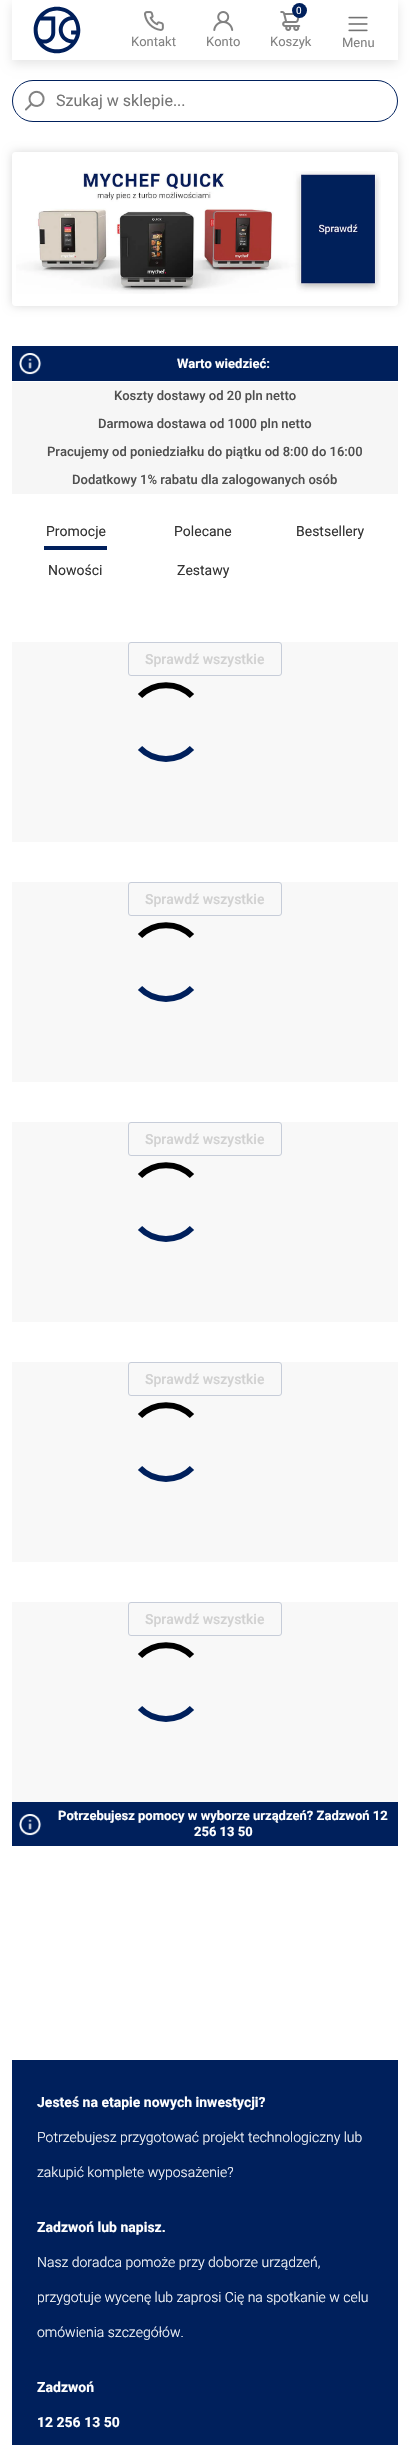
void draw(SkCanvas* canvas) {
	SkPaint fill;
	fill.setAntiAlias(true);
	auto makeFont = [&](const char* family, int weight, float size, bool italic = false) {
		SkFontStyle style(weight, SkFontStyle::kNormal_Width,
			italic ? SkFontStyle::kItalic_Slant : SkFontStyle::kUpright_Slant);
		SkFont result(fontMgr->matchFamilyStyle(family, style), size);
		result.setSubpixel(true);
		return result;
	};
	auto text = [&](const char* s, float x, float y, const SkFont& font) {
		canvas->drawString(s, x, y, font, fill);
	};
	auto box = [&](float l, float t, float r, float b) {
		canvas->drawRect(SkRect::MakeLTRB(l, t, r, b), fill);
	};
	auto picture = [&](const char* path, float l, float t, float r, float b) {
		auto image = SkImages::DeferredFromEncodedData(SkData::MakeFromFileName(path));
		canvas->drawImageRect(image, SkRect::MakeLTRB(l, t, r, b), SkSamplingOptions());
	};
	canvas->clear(0xFFFFFFFF);
	fill.setColor(0xFFF8F8F8);
	box(12, 1602, 398, 1802);
	box(12, 1362, 398, 1562);
	box(12, 1122, 398, 1322);
	box(12, 882, 398, 1082);
	box(12, 642, 398, 842);
	canvas->save();
	canvas->clipPath(SkPathBuilder(SkPathFillType::kEvenOdd).moveTo(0, 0).lineTo(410, 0).lineTo(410, 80).lineTo(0, 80).close().moveTo(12, 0).lineTo(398, 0).lineTo(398, 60).lineTo(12, 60).close().detach(), true);
	fill.setColor(0x1A000000);
	fill.setMaskFilter(SkMaskFilter::MakeBlur(kNormal_SkBlurStyle, 5));
	canvas->drawRect(SkRect::MakeLTRB(12, 4, 398, 64), fill);
	fill.setMaskFilter(nullptr);
	canvas->restore();
	picture("image0.png", 33, 6, 81, 54);
	picture("image1.png", 144, 11, 164, 31);
	picture("image2.png", 213, 11, 234, 31);
	picture("image3.png", 280, 11, 301, 31);
	fill.setColor(0xFF00205C);
	canvas->drawCircle(299.5f, 10.5f, 7.5f, fill);
	picture("image4.png", 348, 16, 368, 32);
	fill.setStyle(SkPaint::kStroke_Style);
	fill.setStrokeWidth(1);
	canvas->drawRoundRect(SkRect::MakeLTRB(12.5f, 80.5f, 397.5f, 121.5f), 20.5f, 20.5f, fill);
	picture("image5.png", 25, 90, 45, 111);
	canvas->save();
	canvas->clipPath(SkPathBuilder(SkPathFillType::kEvenOdd).moveTo(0, 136).lineTo(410, 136).lineTo(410, 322).lineTo(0, 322).close().moveTo(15, 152).lineTo(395, 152).cubicTo(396.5f, 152, 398, 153.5f, 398, 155).lineTo(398, 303).cubicTo(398, 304.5f, 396.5f, 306, 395, 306).lineTo(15, 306).cubicTo(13.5f, 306, 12, 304.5f, 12, 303).lineTo(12, 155).cubicTo(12, 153.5f, 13.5f, 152, 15, 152).close().detach(), true);
	fill.setStyle(SkPaint::kFill_Style);
	fill.setColor(0x26000000);
	fill.setMaskFilter(SkMaskFilter::MakeBlur(kNormal_SkBlurStyle, 5));
	canvas->drawRoundRect(SkRect::MakeLTRB(12, 152, 398, 306), 3, 3, fill);
	fill.setMaskFilter(nullptr);
	canvas->restore();
	picture("image6.png", 16, 171, 381, 294);
	fill.setColor(0xFF00205C);
	box(12, 346, 398, 381);
	picture("image7.png", 19, 353, 42, 375);
	fill.setColor(0xFFF6F6F6);
	box(12, 382, 398, 494);
	fill.setColor(0xFF00205C);
	box(44, 546, 107, 550);
	fill.setStyle(SkPaint::kStroke_Style);
	fill.setColor(0xFFC7CDD9);
	canvas->drawRoundRect(SkRect::MakeLTRB(128.5f, 642.5f, 281.5f, 675.5f), 2.5f, 2.5f, fill);
	fill.setStrokeWidth(6);
	fill.setColor(0xFF000000);
	canvas->drawPath(SkPathBuilder().moveTo(140, 696).cubicTo(154, 681.5f, 178, 681.5f, 192, 696).detach(), fill);
	fill.setColor(0xFF00205C);
	canvas->drawPath(SkPathBuilder().moveTo(192, 748).cubicTo(178, 762.5f, 154, 762.5f, 140, 748).detach(), fill);
	fill.setStrokeWidth(1);
	fill.setColor(0xFFC7CDD9);
	canvas->drawRoundRect(SkRect::MakeLTRB(128.5f, 882.5f, 281.5f, 915.5f), 2.5f, 2.5f, fill);
	fill.setStrokeWidth(6);
	fill.setColor(0xFF000000);
	canvas->drawPath(SkPathBuilder().moveTo(140, 936).cubicTo(154, 921.5f, 178, 921.5f, 192, 936).detach(), fill);
	fill.setColor(0xFF00205C);
	canvas->drawPath(SkPathBuilder().moveTo(192, 988).cubicTo(178, 1002.5f, 154, 1002.5f, 140, 988).detach(), fill);
	fill.setStrokeWidth(1);
	fill.setColor(0xFFC7CDD9);
	canvas->drawRoundRect(SkRect::MakeLTRB(128.5f, 1122.5f, 281.5f, 1155.5f), 2.5f, 2.5f, fill);
	fill.setStrokeWidth(6);
	fill.setColor(0xFF000000);
	canvas->drawPath(SkPathBuilder().moveTo(140, 1176).cubicTo(154, 1161.5f, 178, 1161.5f, 192, 1176).detach(), fill);
	fill.setColor(0xFF00205C);
	canvas->drawPath(SkPathBuilder().moveTo(192, 1228).cubicTo(178, 1242.5f, 154, 1242.5f, 140, 1228).detach(), fill);
	fill.setStrokeWidth(1);
	fill.setColor(0xFFC7CDD9);
	canvas->drawRoundRect(SkRect::MakeLTRB(128.5f, 1362.5f, 281.5f, 1395.5f), 2.5f, 2.5f, fill);
	fill.setStrokeWidth(6);
	fill.setColor(0xFF000000);
	canvas->drawPath(SkPathBuilder().moveTo(140, 1416).cubicTo(154, 1401.5f, 178, 1401.5f, 192, 1416).detach(), fill);
	fill.setColor(0xFF00205C);
	canvas->drawPath(SkPathBuilder().moveTo(192, 1468).cubicTo(178, 1482.5f, 154, 1482.5f, 140, 1468).detach(), fill);
	fill.setStrokeWidth(1);
	fill.setColor(0xFFC7CDD9);
	canvas->drawRoundRect(SkRect::MakeLTRB(128.5f, 1602.5f, 281.5f, 1635.5f), 2.5f, 2.5f, fill);
	fill.setStrokeWidth(6);
	fill.setColor(0xFF000000);
	canvas->drawPath(SkPathBuilder().moveTo(140, 1656).cubicTo(154, 1641.5f, 178, 1641.5f, 192, 1656).detach(), fill);
	fill.setColor(0xFF00205C);
	canvas->drawPath(SkPathBuilder().moveTo(192, 1708).cubicTo(178, 1722.5f, 154, 1722.5f, 140, 1708).detach(), fill);
	fill.setStyle(SkPaint::kFill_Style);
	box(12, 1802, 398, 1846);
	picture("image7.png", 19, 1814, 42, 1836);
	box(12, 2060, 398, 2445);
	auto font1 = makeFont("Roboto", 400, 13);
	fill.setColor(0xFF828282);
	text("Kontakt", 131, 46, font1);
	text("Konto", 206, 46, font1);
	auto font2 = makeFont("Roboto", 400, 10);
	fill.setColor(0xFFFFFFFF);
	text("0", 296, 14, font2);
	fill.setColor(0xFF828282);
	text("Koszyk", 270, 46, font1);
	text("Menu", 342, 47, font1);
	auto font3 = makeFont("Roboto", 400, 16);
	fill.setColor(0xFF757575);
	text("Szukaj w sklepie...", 56, 106, font3);
	auto font4 = makeFont("Roboto", 700, 13);
	fill.setColor(0xFFFFFFFF);
	text("Warto wiedzieć:", 177, 368, font4);
	auto font5 = makeFont("Roboto", 500, 13);
	fill.setColor(0xFF4F4F4F);
	text("Koszty dostawy od 20 pln netto", 114, 400, font5);
	text("Darmowa dostawa od 1000 pln netto", 98, 428, font5);
	text("Pracujemy od poniedziałku do piątku od 8:00 do 16:00", 47, 456, font5);
	text("Dodatkowy 1% rabatu dla zalogowanych osób", 72, 484, font5);
	auto font6 = makeFont("Roboto", 400, 14);
	fill.setColor(0xFF333333);
	text("Promocje", 46, 536, font6);
	text("Polecane", 174, 536, font6);
	text("Bestsellery", 296, 536, font6);
	text("Nowości", 48, 575, font6);
	text("Zestawy", 177, 575, font6);
	auto font7 = makeFont("Roboto", 500, 14);
	fill.setColor(0xFFD1D1D1);
	text("Sprawdź wszystkie", 145, 664, font7);
	text("Sprawdź wszystkie", 145, 904, font7);
	text("Sprawdź wszystkie", 145, 1144, font7);
	text("Sprawdź wszystkie", 145, 1384, font7);
	text("Sprawdź wszystkie", 145, 1624, font7);
	fill.setColor(0xFFFFFFFF);
	text("Potrzebujesz pomocy w wyborze urządzeń? Zadzwoń 12", 58, 1820, font4);
	text("256 13 50", 194, 1836, font4);
	auto font8 = makeFont("Roboto", 700, 14);
	text("Jesteś na etapie nowych inwestycji?", 37, 2107, font8);
	auto font9 = makeFont("Roboto", 300, 14);
	text("Potrzebujesz przygotować projekt technologiczny lub", 37, 2142, font9);
	text("zakupić komplete wyposażenie?", 37, 2177, font9);
	text("Zadzwoń lub napisz.", 37, 2232, font8);
	text("Nasz doradca pomoże przy doborze urządzeń,", 37, 2267, font9);
	text("przygotuje wycenę lub zaprosi Cię na spotkanie w celu", 37, 2302, font9);
	text("omówienia szczegółów.", 37, 2337, font9);
	text("Zadzwoń", 37, 2392, font8);
	text("12 256 13 50", 37, 2427, font8);
}
